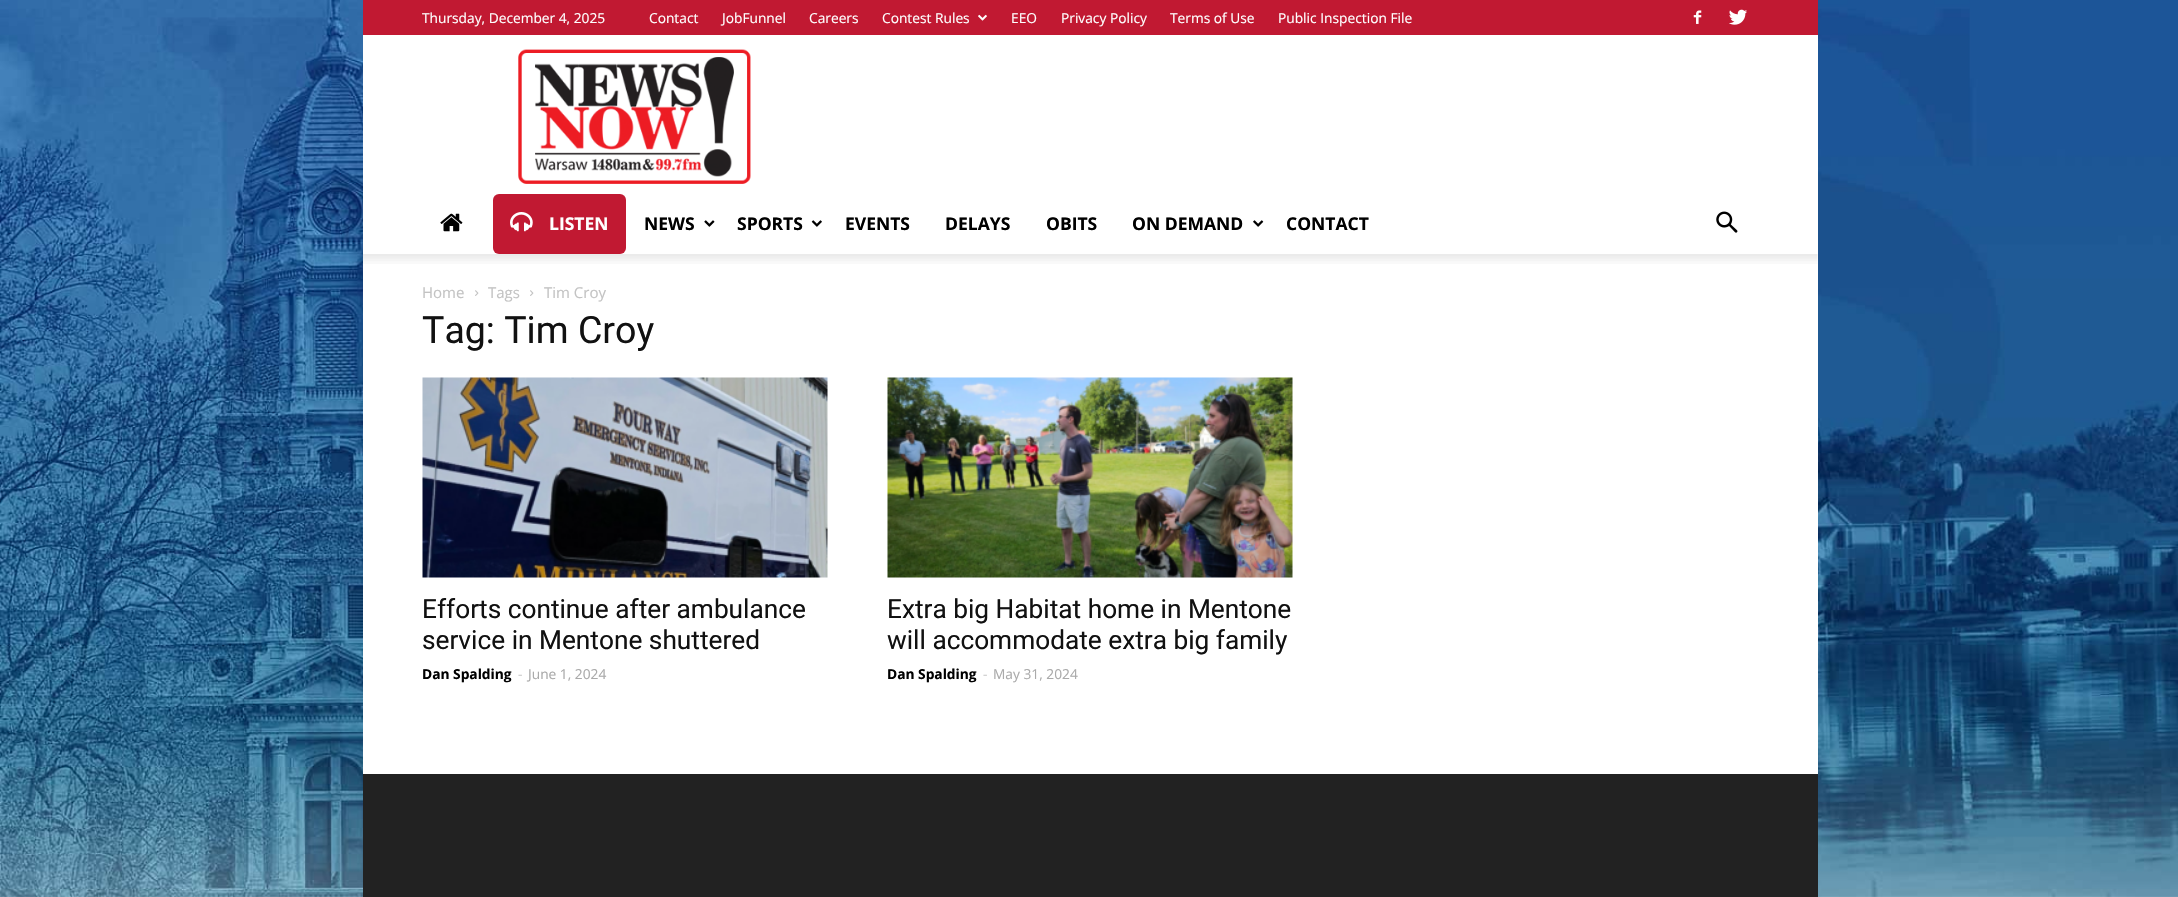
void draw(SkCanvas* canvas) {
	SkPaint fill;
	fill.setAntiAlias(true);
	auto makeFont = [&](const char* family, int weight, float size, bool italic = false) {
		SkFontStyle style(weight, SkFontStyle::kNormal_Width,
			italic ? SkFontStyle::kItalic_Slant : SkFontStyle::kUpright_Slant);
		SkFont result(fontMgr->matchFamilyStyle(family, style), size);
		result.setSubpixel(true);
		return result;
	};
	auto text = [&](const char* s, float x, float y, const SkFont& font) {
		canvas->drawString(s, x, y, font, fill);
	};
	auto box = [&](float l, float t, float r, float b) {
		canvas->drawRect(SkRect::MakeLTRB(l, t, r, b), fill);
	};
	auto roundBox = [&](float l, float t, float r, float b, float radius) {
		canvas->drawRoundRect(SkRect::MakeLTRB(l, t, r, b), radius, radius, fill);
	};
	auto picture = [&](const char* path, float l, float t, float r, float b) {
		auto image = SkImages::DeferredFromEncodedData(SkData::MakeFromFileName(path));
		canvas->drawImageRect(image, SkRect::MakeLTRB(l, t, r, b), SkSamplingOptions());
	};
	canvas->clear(0xFFFFFFFF);
	picture("image0.png", 0, 0, 2178, 897);
	fill.setColor(0xFFC11932);
	box(363, 0, 1818, 35);
	picture("image1.png", 978, 14, 987, 21);
	picture("image2.png", 1693, 10, 1702, 24);
	picture("image3.png", 1729, 9, 1747, 25);
	fill.setColor(0xFFFFFFFF);
	box(363, 35, 1818, 254);
	picture("image4.png", 518, 49, 751, 184);
	picture("image5.png", 440, 213, 463, 232);
	fill.setColor(0xFFC11932);
	roundBox(493, 194, 626, 254, 6);
	picture("image6.png", 510, 212, 533, 232);
	picture("image7.png", 704, 220, 715, 227);
	picture("image8.png", 811, 220, 822, 227);
	picture("image9.png", 1253, 220, 1264, 227);
	picture("image10.png", 1716, 211, 1738, 233);
	fill.setColor(0xFFFFFFFF);
	box(363, 254, 1818, 774);
	picture("image11.png", 362, 254, 1818, 264);
	picture("image12.png", 475, 290, 479, 296);
	picture("image12.png", 530, 290, 534, 296);
	picture("image13.png", 422, 377, 828, 578);
	picture("image14.png", 887, 377, 1293, 578);
	fill.setColor(0xFF222222);
	box(363, 774, 1818, 897);
	auto font1 = makeFont("Open Sans", 400, 13.75f);
	fill.setColor(0xFFFFFFFF);
	text("Thursday, December 4, 2025", 422, 23, font1);
	text("Contact", 649, 23, font1);
	text("JobFunnel", 722, 23, font1);
	text("Careers", 809, 23, font1);
	text("Contest Rules", 882, 23, font1);
	text("EEO", 1011, 23, font1);
	text("Privacy Policy", 1061, 23, font1);
	text("Terms of Use", 1170, 23, font1);
	text("Public Inspection File", 1278, 23, font1);
	auto font2 = makeFont("Open Sans", 700, 17.5f);
	text("LISTEN", 549, 230, font2);
	fill.setColor(0xFF000000);
	text("NEWS", 644, 230, font2);
	text("SPORTS", 737, 230, font2);
	text("EVENTS", 845, 230, font2);
	text("DELAYS", 945, 230, font2);
	text("OBITS", 1046, 230, font2);
	text("ON DEMAND", 1132, 230, font2);
	text("CONTACT", 1286, 230, font2);
	auto font3 = makeFont("Open Sans", 400, 15);
	fill.setColor(0xFFC3C3C3);
	text("Home", 422, 298, font3);
	text("Tags", 488, 298, font3);
	text("Tim Croy", 544, 298, font3);
	auto font4 = makeFont("Roboto", 400, 37.5f);
	fill.setColor(0xFF111111);
	text("Tag: Tim Croy", 422, 343, font4);
	auto font5 = makeFont("Roboto", 400, 26.25f);
	text("Efforts continue after ambulance", 422, 618, font5);
	text("service in Mentone shuttered", 422, 649, font5);
	auto font6 = makeFont("Open Sans", 700, 13.75f);
	fill.setColor(0xFF000000);
	text("Dan Spalding", 422, 679, font6);
	fill.setColor(0xFFCCCCCC);
	text("-", 518, 679, font1);
	fill.setColor(0xFFAAAAAA);
	text("June 1, 2024", 528, 679, font1);
	fill.setColor(0xFF111111);
	text("Extra big Habitat home in Mentone", 887, 618, font5);
	text("will accommodate extra big family", 887, 649, font5);
	fill.setColor(0xFF000000);
	text("Dan Spalding", 887, 679, font6);
	fill.setColor(0xFFCCCCCC);
	text("-", 983, 679, font1);
	fill.setColor(0xFFAAAAAA);
	text("May 31, 2024", 993, 679, font1);
}
